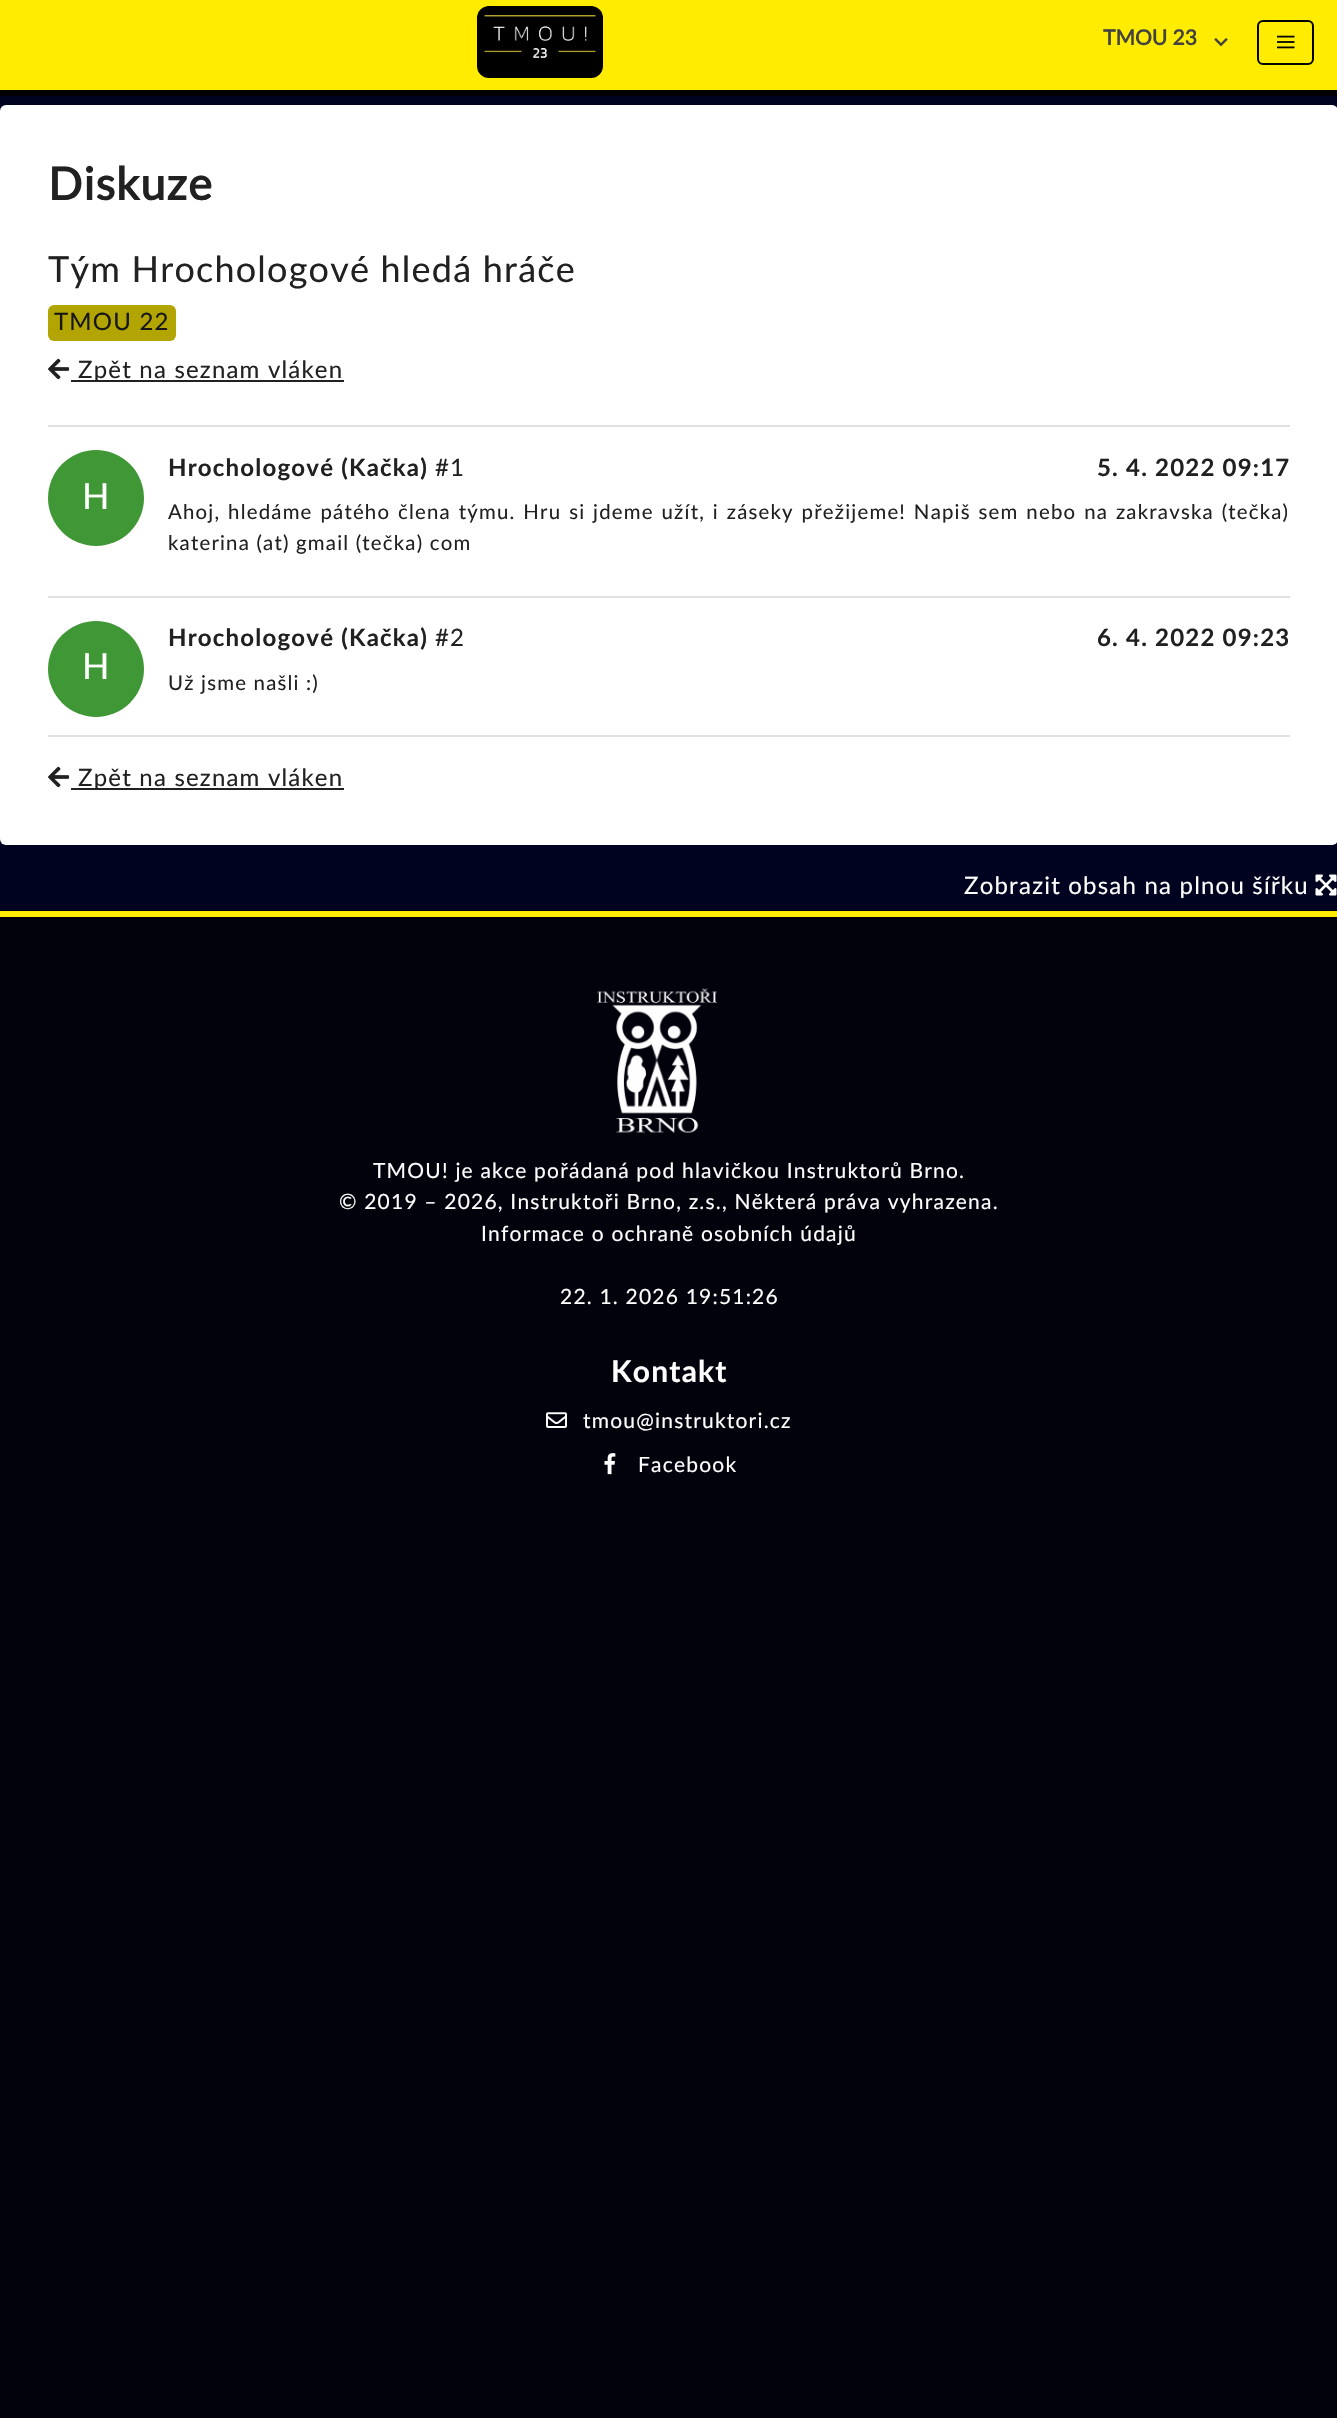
void draw(SkCanvas* canvas) {
	SkPaint fill;
	fill.setAntiAlias(true);
	auto makeFont = [&](const char* family, int weight, float size, bool italic = false) {
		SkFontStyle style(weight, SkFontStyle::kNormal_Width,
			italic ? SkFontStyle::kItalic_Slant : SkFontStyle::kUpright_Slant);
		SkFont result(fontMgr->matchFamilyStyle(family, style), size);
		result.setSubpixel(true);
		return result;
	};
	auto text = [&](const char* s, float x, float y, const SkFont& font) {
		canvas->drawString(s, x, y, font, fill);
	};
	auto spacedText = [&](const char* s, float x, float y, const SkFont& font, const SkPaint& ink, float letter, float word) {
		std::vector<SkGlyphID> glyphs(font.countText(s, strlen(s), SkTextEncoding::kUTF8));
		std::vector<float> xs(glyphs.size());
		font.textToGlyphs(s, strlen(s), SkTextEncoding::kUTF8, glyphs);
		font.getXPos(glyphs, xs, x);
		float extra = 0;
		for (size_t i = 0; i < glyphs.size(); i++) {
			xs[i] += extra;
			extra += letter + word * (glyphs[i] == font.unicharToGlyph(' '));
		}
		canvas->drawTextBlob(SkTextBlob::MakeFromPosHGlyphs(glyphs, xs, y, font), 0, 0, ink);
	};
	auto box = [&](float l, float t, float r, float b) {
		canvas->drawRect(SkRect::MakeLTRB(l, t, r, b), fill);
	};
	auto roundBox = [&](float l, float t, float r, float b, float radius) {
		canvas->drawRoundRect(SkRect::MakeLTRB(l, t, r, b), radius, radius, fill);
	};
	auto picture = [&](const char* path, float l, float t, float r, float b) {
		auto image = SkImages::DeferredFromEncodedData(SkData::MakeFromFileName(path));
		canvas->drawImageRect(image, SkRect::MakeLTRB(l, t, r, b), SkSamplingOptions());
	};
	canvas->clear(0xFF01020C);
	fill.setColor(0xFFFFEC01);
	box(0, 0, 1337, 90);
	fill.setColor(0xFF000000);
	box(0, 90, 1337, 96);
	picture("image0.png", 477, 6, 603, 78);
	picture("image1.png", 1214, 38, 1228, 47);
	fill.setStyle(SkPaint::kStroke_Style);
	fill.setStrokeWidth(2);
	canvas->drawRoundRect(SkRect::MakeLTRB(1258, 21, 1313, 64), 5, 5, fill);
	picture("image2.png", 1277, 35, 1295, 49);
	fill.setStyle(SkPaint::kFill_Style);
	fill.setColor(0xFF00031F);
	box(0, 96, 1337, 911);
	fill.setColor(0xFFFFFFFF);
	roundBox(0, 105, 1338, 845, 6);
	fill.setColor(0xFFB3A501);
	roundBox(48, 305, 176, 341, 6);
	picture("image3.png", 48, 358, 70, 380);
	fill.setColor(0xFF212121);
	box(71, 380, 344, 382);
	fill.setColor(0xFFE0E0E0);
	box(48, 425, 1290, 427);
	fill.setColor(0xFF3F9735);
	canvas->drawCircle(96, 498, 48, fill);
	fill.setColor(0xFFE0E0E0);
	box(48, 596, 1290, 598);
	fill.setColor(0xFF3F9735);
	canvas->drawCircle(96, 669, 48, fill);
	fill.setColor(0xFFE0E0E0);
	box(48, 735, 1290, 737);
	picture("image3.png", 48, 766, 70, 788);
	fill.setColor(0xFF212121);
	box(71, 788, 344, 790);
	picture("image4.png", 1315, 874, 1337, 896);
	fill.setColor(0xFFFFEC01);
	box(0, 911, 1337, 917);
	picture("image5.png", 597, 988, 717, 1133);
	picture("image6.png", 546, 1412, 567, 1428);
	picture("image7.png", 604, 1453, 616, 1475);
	picture("image8.png", 0, 1536, 1337, 1920);
	auto font1 = makeFont("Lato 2", 700, 21);
	fill.setColor(0xFF424242);
	text("TMOU 23", 1103, 45, font1);
	auto font2 = makeFont("Lato 2", 700, 45);
	fill.setColor(0xFF212121);
	spacedText("Diskuze", 48, 200, font2, fill, 1.2f, 0);
	auto font3 = makeFont("Lato", 400, 36);
	spacedText("Tým Hrochologové hledá hráče", 48, 282, font3, fill, 1.2f, 0);
	auto font4 = makeFont("Lato", 400, 24);
	fill.setColor(0xFF171717);
	spacedText("TMOU 22", 54, 330, font4, fill, 1.2f, 0);
	fill.setColor(0xFF212121);
	spacedText("Zpět na seznam vláken", 78, 378, font4, fill, 1.2f, 0);
	auto font5 = makeFont("Lato", 700, 24);
	spacedText("Hrochologové (Kačka)", 168, 476, font5, fill, 1.2f, 0);
	spacedText("#1", 435, 476, font4, fill, 1.2f, 0);
	spacedText("5. 4. 2022 09:17", 1097, 476, font5, fill, 1.2f, 0);
	fill.setColor(0xFFFFFFFF);
	spacedText("H", 82, 509, font3, fill, 1.2f, 0);
	auto font6 = makeFont("Lato", 400, 20.4f);
	fill.setColor(0xFF212121);
	spacedText("Ahoj, hledáme pátého člena týmu. Hru si jdeme užít, i záseky přežijeme! Napiš sem nebo na zakravska (tečka)", 168, 519, font6, fill, 1.2f, 1.4f);
	spacedText("katerina (at) gmail (tečka) com", 168, 550, font6, fill, 1.2f, 0);
	spacedText("Hrochologové (Kačka)", 168, 646, font5, fill, 1.2f, 0);
	spacedText("#2", 435, 646, font4, fill, 1.2f, 0);
	spacedText("6. 4. 2022 09:23", 1097, 646, font5, fill, 1.2f, 0);
	fill.setColor(0xFFFFFFFF);
	spacedText("H", 82, 679, font3, fill, 1.2f, 0);
	fill.setColor(0xFF212121);
	spacedText("Už jsme našli :)", 168, 690, font6, fill, 1.2f, 0);
	spacedText("Zpět na seznam vláken", 78, 786, font4, fill, 1.2f, 0);
	fill.setColor(0xFFFFFFFF);
	spacedText("Zobrazit obsah na plnou šířku", 964, 894, font4, fill, 1.2f, 0);
	auto font7 = makeFont("Lato", 400, 21);
	spacedText("TMOU! je akce pořádaná pod hlavičkou Instruktorů Brno.", 373, 1178, font7, fill, 1.2f, 0);
	spacedText("© 2019 – 2026, Instruktoři Brno, z.s., Některá práva vyhrazena.", 339, 1209, font7, fill, 1.2f, 0);
	spacedText("Informace o ochraně osobních údajů", 481, 1241, font7, fill, 1.2f, 0);
	spacedText("22. 1. 2026 19:51:26", 560, 1304, font7, fill, 1.2f, 0);
	auto font8 = makeFont("Lato", 700, 30);
	spacedText("Kontakt", 611, 1382, font8, fill, 1.2f, 0);
	spacedText("tmou@instruktori.cz", 583, 1428, font7, fill, 1.2f, 0);
	spacedText("Facebook", 638, 1472, font7, fill, 1.2f, 0);
}
